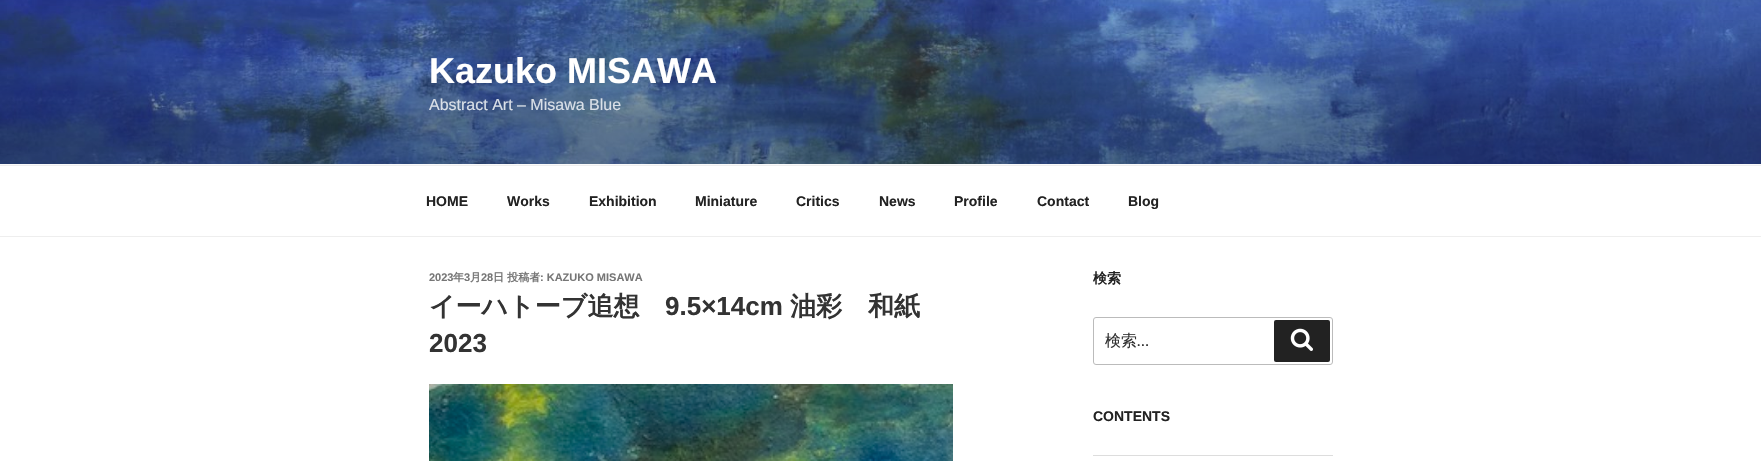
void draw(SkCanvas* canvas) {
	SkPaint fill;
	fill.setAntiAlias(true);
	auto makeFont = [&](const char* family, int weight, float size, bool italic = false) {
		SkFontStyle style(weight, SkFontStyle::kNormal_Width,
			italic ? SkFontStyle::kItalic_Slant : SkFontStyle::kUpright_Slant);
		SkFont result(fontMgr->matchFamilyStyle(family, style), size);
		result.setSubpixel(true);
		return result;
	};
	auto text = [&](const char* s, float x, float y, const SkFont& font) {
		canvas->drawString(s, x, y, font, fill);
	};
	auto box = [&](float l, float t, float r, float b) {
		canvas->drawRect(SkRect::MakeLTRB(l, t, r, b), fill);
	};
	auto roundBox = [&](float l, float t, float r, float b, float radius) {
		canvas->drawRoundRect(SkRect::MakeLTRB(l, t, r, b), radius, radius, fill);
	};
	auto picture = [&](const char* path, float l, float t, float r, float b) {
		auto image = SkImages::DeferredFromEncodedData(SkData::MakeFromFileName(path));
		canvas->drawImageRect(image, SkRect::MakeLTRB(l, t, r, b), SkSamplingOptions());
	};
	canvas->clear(0xFFFFFFFF);
	fill.setColor(0xFFFAFAFA);
	box(0, 164, 1761, 165);
	picture("image0.png", 0, 0, 1761, 164);
	fill.setColor(0xFFEEEEEE);
	box(0, 165, 1761, 166);
	box(0, 236, 1761, 237);
	picture("image1.png", 429, 384, 953, 461);
	fill.setStyle(SkPaint::kStroke_Style);
	fill.setStrokeWidth(1);
	fill.setColor(0xFFBBBBBB);
	canvas->drawRoundRect(SkRect::MakeLTRB(1093.5f, 317.5f, 1332.5f, 364.5f), 2.5f, 2.5f, fill);
	fill.setStyle(SkPaint::kFill_Style);
	fill.setColor(0xFF222222);
	roundBox(1274, 320, 1330, 362, 2);
	picture("image2.png", 1290, 328, 1313, 351);
	fill.setColor(0xFFDDDDDD);
	box(1093, 455, 1333, 456);
	auto font1 = makeFont("Liberation Sans", 700, 36);
	fill.setColor(0xFFFFFFFF);
	text("Kazuko MISAWA", 429, 83, font1);
	auto font2 = makeFont("Liberation Sans", 400, 16);
	fill.setColor(0xFFDAE0E8);
	text("Abstract Art – Misawa Blue", 429, 110, font2);
	auto font3 = makeFont("Liberation Sans", 700, 14);
	fill.setColor(0xFF222222);
	text("HOME", 426, 206, font3);
	text("Works", 507, 206, font3);
	text("Exhibition", 589, 206, font3);
	text("Miniature", 695, 206, font3);
	text("Critics", 796, 206, font3);
	text("News", 879, 206, font3);
	text("Profile", 954, 206, font3);
	text("Contact", 1037, 206, font3);
	text("Blog", 1128, 206, font3);
	auto font4 = makeFont("Liberation Sans", 700, 11);
	fill.setColor(0xFF767676);
	text("2023", 429, 281, font4);
	auto font5 = makeFont("WenQuanYi Zen Hei", 700, 11);
	text("年", 453, 281, font5);
	text("3", 464, 281, font4);
	text("月", 470, 281, font5);
	text("28", 481, 281, font4);
	text("日 投稿者", 493, 281, font5);
	text(": KAZUKO MISAWA", 540, 281, font4);
	auto font6 = makeFont("WenQuanYi Zen Hei", 700, 26);
	fill.setColor(0xFF333333);
	text("イーハトーブ追想", 429, 315, font6);
	auto font7 = makeFont("Liberation Sans", 700, 26);
	text("9.5×14cm", 665, 315, font7);
	text("油彩　和紙", 790, 315, font6);
	text("2023", 429, 352, font7);
	auto font8 = makeFont("WenQuanYi Zen Hei", 700, 14);
	fill.setColor(0xFF222222);
	text("検索", 1093, 283, font8);
	auto font9 = makeFont("WenQuanYi Zen Hei", 500, 16);
	fill.setColor(0xFF333333);
	text("検索", 1105, 346, font9);
	auto font10 = makeFont("Libre Franklin", 400, 16);
	text("…", 1137, 346, font10);
	fill.setColor(0xFF222222);
	text("CONTENTS", 1093, 421, font3);
}
